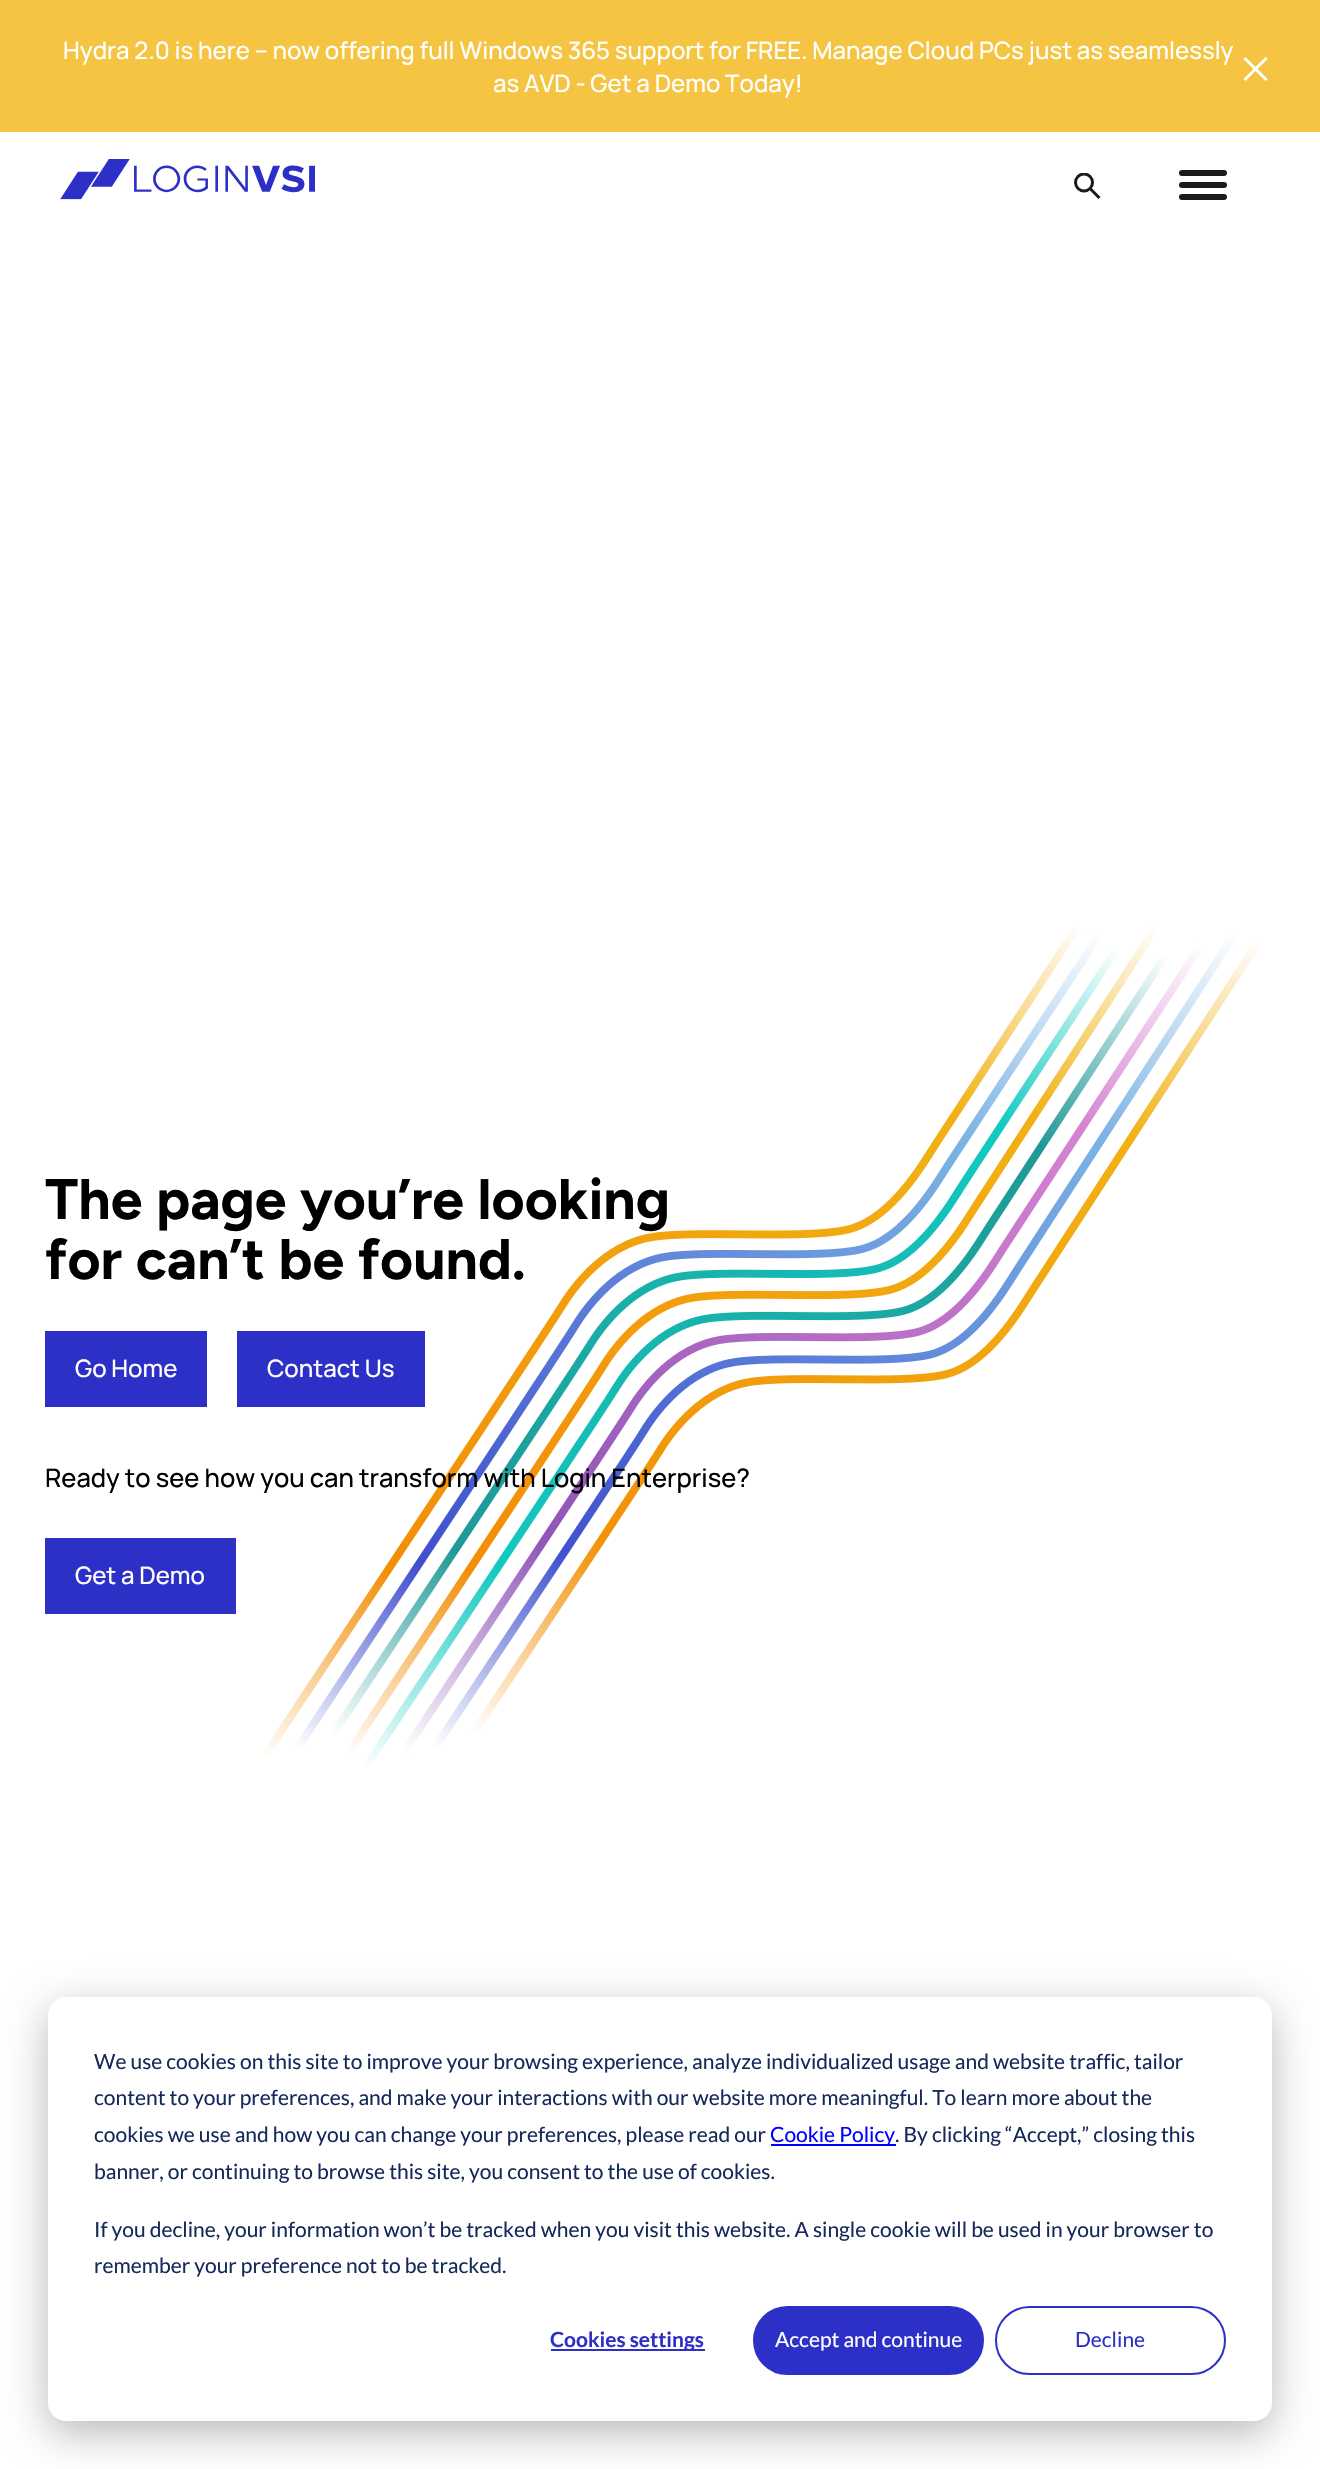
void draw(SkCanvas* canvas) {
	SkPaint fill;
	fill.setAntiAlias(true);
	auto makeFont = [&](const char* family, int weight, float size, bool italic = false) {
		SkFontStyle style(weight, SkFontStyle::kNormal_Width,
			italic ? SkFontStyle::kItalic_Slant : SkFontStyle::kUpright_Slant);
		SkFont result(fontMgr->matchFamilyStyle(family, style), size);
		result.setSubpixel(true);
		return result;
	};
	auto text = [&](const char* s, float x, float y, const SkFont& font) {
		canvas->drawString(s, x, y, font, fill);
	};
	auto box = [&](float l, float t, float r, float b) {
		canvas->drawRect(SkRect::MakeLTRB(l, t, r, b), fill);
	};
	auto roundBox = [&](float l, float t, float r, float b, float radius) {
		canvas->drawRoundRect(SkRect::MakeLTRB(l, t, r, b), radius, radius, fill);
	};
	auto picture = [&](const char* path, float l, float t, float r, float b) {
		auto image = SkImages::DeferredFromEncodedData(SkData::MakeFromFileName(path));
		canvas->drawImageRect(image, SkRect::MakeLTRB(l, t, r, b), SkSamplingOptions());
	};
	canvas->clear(0xFFFFFFFF);
	fill.setColor(0xFFF5C443);
	box(0, 0, 1320, 132);
	fill.setStyle(SkPaint::kStroke_Style);
	fill.setStrokeWidth(3);
	fill.setStrokeCap(SkPaint::kSquare_Cap);
	fill.setColor(0xFFFFFFFF);
	canvas->drawPath(SkPathBuilder().moveTo(1245.5f, 59).lineTo(1265.5f, 79).moveTo(1265.5f, 59).lineTo(1245.5f, 79).detach(), fill);
	picture("image0.png", 60, 159, 315, 200);
	canvas->save();
	canvas->clipRect(SkRect::MakeLTRB(1074, 173, 1101, 200));
	fill.setStrokeCap(SkPaint::kButt_Cap);
	fill.setColor(0xFF181B1E);
	canvas->drawCircle(1084, 182.5f, 8.5f, fill);
	canvas->restore();
	canvas->drawPath(SkPathBuilder().moveTo(1099.5f, 198).lineTo(1090, 188.5f).detach(), fill);
	fill.setStyle(SkPaint::kFill_Style);
	roundBox(1179, 170, 1227, 176, 3);
	roundBox(1179, 182, 1227, 188, 3);
	roundBox(1179, 194, 1227, 200, 3);
	picture("image1.png", 264, 926, 1260, 1766);
	fill.setColor(0xFF2D30C6);
	box(45, 1331, 207, 1407);
	box(237, 1331, 425, 1407);
	box(45, 1538, 236, 1614);
	fill.setColor(0x47000000);
	fill.setMaskFilter(SkMaskFilter::MakeBlur(kNormal_SkBlurStyle, 21));
	canvas->drawRoundRect(SkRect::MakeLTRB(48, 2009, 1272, 2433), 18, 18, fill);
	fill.setMaskFilter(nullptr);
	fill.setColor(0xFFFFFFFF);
	roundBox(48, 1997, 1272, 2421, 18);
	fill.setColor(0xFF0000FF);
	box(771, 2144, 896, 2146);
	fill.setColor(0xFF2D30C6);
	box(551, 2349, 705, 2351);
	canvas->drawRoundRect(SkRect::MakeLTRB(754, 2307, 983, 2374), 33.5f, 33.5f, fill);
	fill.setStyle(SkPaint::kStroke_Style);
	fill.setStrokeWidth(2);
	canvas->drawRoundRect(SkRect::MakeLTRB(754, 2307, 983, 2374), 33.5f, 33.5f, fill);
	canvas->drawRoundRect(SkRect::MakeLTRB(996, 2307, 1225, 2374), 33.5f, 33.5f, fill);
	auto font1 = makeFont("Manrope", 200, 24);
	fill.setStyle(SkPaint::kFill_Style);
	fill.setColor(0xFFFFFFFF);
	text("Hydra 2.0 is here – now offering full Windows 365 support for FREE. Manage Cloud PCs just as seamlessly", 63, 59, font1);
	text("as AVD - Get a Demo Today!", 493, 92, font1);
	auto font2 = makeFont("Figtree", 700, 57);
	fill.setColor(0xFF000000);
	text("The page you’re looking", 45, 1219, font2);
	text("for can’t be found.", 45, 1279, font2);
	fill.setColor(0xFFFFFFFF);
	text("Go Home", 75, 1377, font1);
	text("Contact Us", 267, 1377, font1);
	auto font3 = makeFont("Manrope", 200, 25.5f);
	fill.setColor(0xFF000000);
	text("Ready to see how you can transform with Login Enterprise?", 45, 1487, font3);
	fill.setColor(0xFFFFFFFF);
	text("Get a Demo", 75, 1584, font1);
	auto font4 = makeFont("Lato", 400, 21);
	fill.setColor(0xFF15295A);
	text("We use cookies on this site to improve your browsing experience, analyze individualized usage and website traffic, tailor", 94, 2069, font4);
	text("content to your preferences, and make your interactions with our website more meaningful. To learn more about the", 94, 2105, font4);
	text("cookies we use and how you can change your preferences, please read our", 94, 2142, font4);
	fill.setColor(0xFF0000FF);
	text("Cookie Policy", 770, 2142, font4);
	fill.setColor(0xFF15295A);
	text(". By clicking “Accept,” closing this", 895, 2142, font4);
	text("banner, or continuing to browse this site, you consent to the use of cookies.", 94, 2179, font4);
	text("If you decline, your information won’t be tracked when you visit this website. A single cookie will be used in your browser to", 94, 2237, font4);
	text("remember your preference not to be tracked.", 94, 2273, font4);
	auto font5 = makeFont("Lato", 700, 21);
	fill.setColor(0xFF2D30C6);
	text("Cookies settings", 550, 2347, font5);
	fill.setColor(0xFFFFFFFF);
	text("Accept and continue", 775, 2347, font4);
	fill.setColor(0xFF2D30C6);
	text("Decline", 1075, 2347, font4);
}
